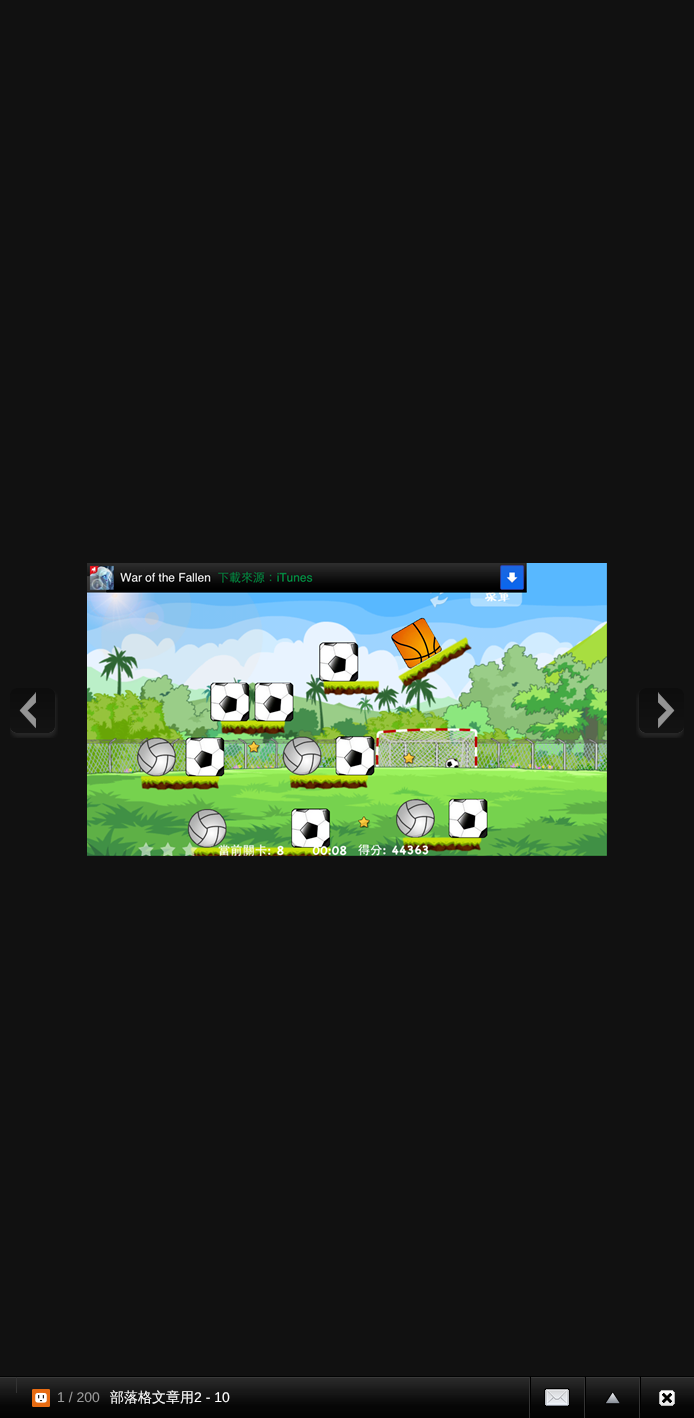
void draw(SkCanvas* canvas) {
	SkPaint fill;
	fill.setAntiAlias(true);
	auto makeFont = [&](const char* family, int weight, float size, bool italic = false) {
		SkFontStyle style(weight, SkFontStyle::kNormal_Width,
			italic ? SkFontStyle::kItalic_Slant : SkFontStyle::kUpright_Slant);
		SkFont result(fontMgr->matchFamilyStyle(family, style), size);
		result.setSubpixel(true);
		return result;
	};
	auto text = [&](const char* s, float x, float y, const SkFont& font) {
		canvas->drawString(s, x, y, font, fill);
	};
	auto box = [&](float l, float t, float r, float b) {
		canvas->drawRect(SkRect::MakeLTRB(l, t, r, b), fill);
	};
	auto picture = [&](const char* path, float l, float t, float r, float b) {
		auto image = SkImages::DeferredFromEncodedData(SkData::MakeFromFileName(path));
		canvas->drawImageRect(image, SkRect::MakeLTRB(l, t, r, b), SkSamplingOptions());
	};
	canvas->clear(0xFF111111);
	picture("image0.png", 10, 688, 58, 738);
	picture("image1.png", 87, 563, 607, 856);
	picture("image2.png", 636, 688, 684, 738);
	picture("image3.png", 0, 1376, 694, 1418);
	fill.setColor(0xFF333333);
	box(16, 1377, 17, 1393);
	picture("image4.png", 32, 1389, 50, 1407);
	box(529, 1377, 530, 1418);
	picture("image5.png", 530, 1377, 570, 1413);
	box(584, 1377, 585, 1418);
	picture("image6.png", 585, 1377, 620, 1413);
	box(639, 1377, 640, 1418);
	picture("image7.png", 640, 1377, 675, 1413);
	auto font1 = makeFont("Liberation Sans", 400, 14);
	fill.setColor(0xFF999999);
	text("1 / 200", 57, 1402, font1);
	auto font2 = makeFont("WenQuanYi Zen Hei", 500, 14);
	fill.setColor(0xFFFFFFFF);
	text("部落格文章用", 110, 1402, font2);
	text("2 - 10", 194, 1402, font1);
}
